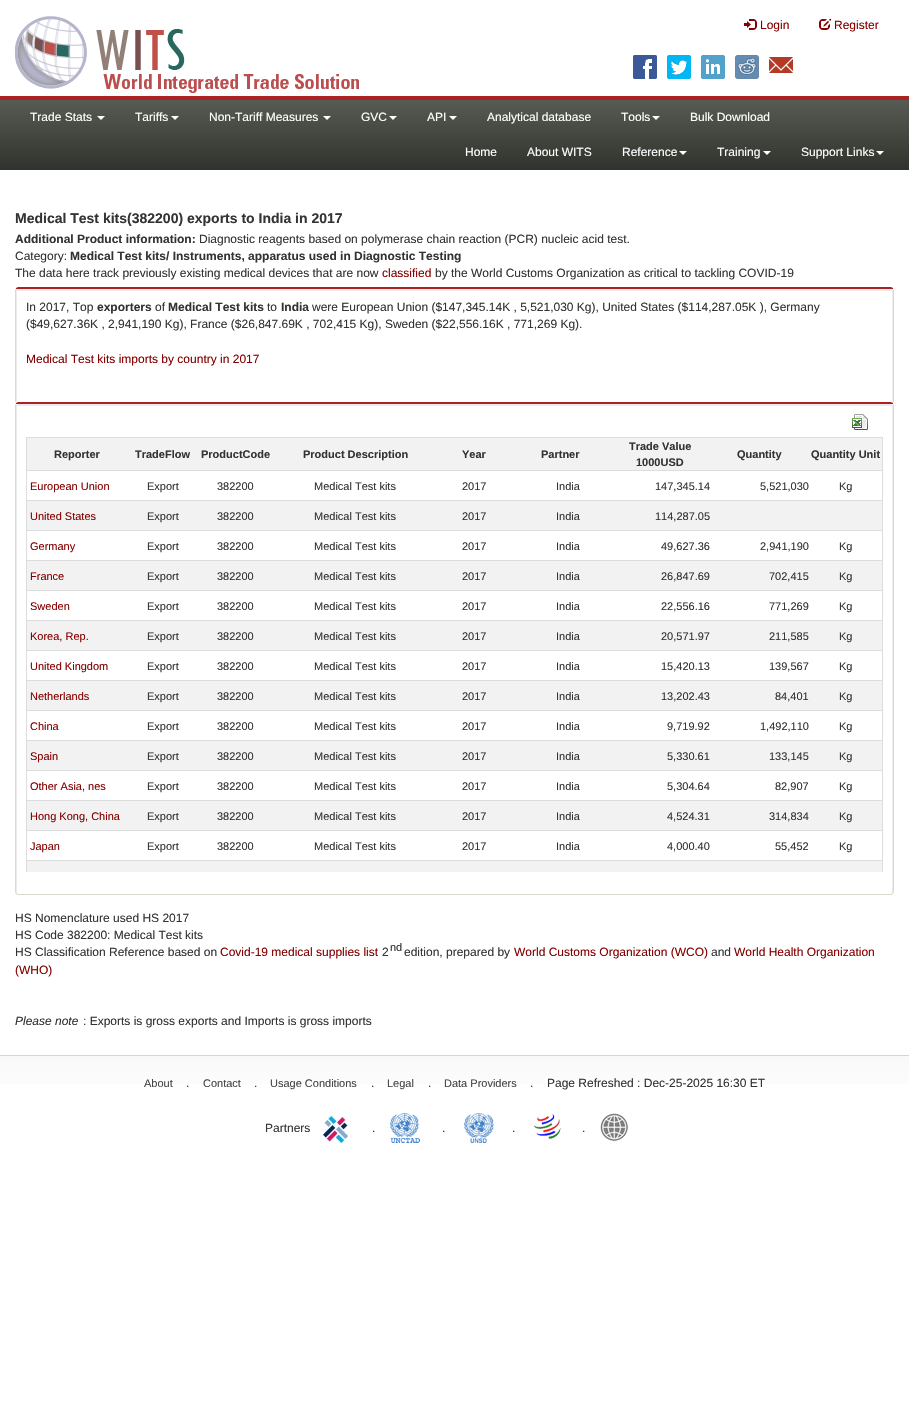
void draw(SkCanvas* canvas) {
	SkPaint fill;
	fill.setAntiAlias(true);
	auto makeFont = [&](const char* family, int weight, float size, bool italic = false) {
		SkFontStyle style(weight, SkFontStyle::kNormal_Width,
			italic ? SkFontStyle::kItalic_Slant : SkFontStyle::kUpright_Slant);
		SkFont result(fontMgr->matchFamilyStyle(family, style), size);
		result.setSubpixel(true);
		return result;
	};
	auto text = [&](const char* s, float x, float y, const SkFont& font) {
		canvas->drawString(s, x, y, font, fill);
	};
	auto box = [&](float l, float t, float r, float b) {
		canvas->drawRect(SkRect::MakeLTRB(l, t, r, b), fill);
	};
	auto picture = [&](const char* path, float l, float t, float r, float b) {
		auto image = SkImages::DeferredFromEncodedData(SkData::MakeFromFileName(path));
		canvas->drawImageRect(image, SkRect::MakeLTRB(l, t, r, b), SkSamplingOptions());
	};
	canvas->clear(0xFFFFFFFF);
	fill.setColor(0xFFAA2222);
	box(0, 96, 909, 100);
	picture("image0.png", 15, 16, 359, 93);
	picture("image1.png", 744, 19, 757, 30);
	picture("image2.png", 819, 18, 832, 30);
	picture("image3.png", 633, 55, 657, 79);
	picture("image4.png", 667, 55, 691, 79);
	picture("image5.png", 701, 55, 725, 79);
	picture("image6.png", 735, 55, 759, 79);
	picture("image7.png", 769, 57, 793, 73);
	{
		const SkColor colors[] = {0xFF585B52, 0xFF30322D};
		const float stops[] = {0, 1};
		const SkPoint ends[] = {{455, 100}, {455, 170}};
		fill.setShader(SkGradientShader::MakeLinear(ends, colors, stops, 2, SkTileMode::kClamp));
		fill.setAlpha(255);
	}
	box(0, 100, 909, 170);
	fill.setShader(nullptr);
	fill.setColor(0xFFFFFFFF);
	canvas->drawPath(SkPathBuilder().moveTo(97, 116).lineTo(105, 116).lineTo(101, 120).close().detach(), fill);
	canvas->drawPath(SkPathBuilder().moveTo(171, 116).lineTo(179, 116).lineTo(175, 120).close().detach(), fill);
	canvas->drawPath(SkPathBuilder().moveTo(323, 116).lineTo(331, 116).lineTo(327, 120).close().detach(), fill);
	canvas->drawPath(SkPathBuilder().moveTo(389, 116).lineTo(397, 116).lineTo(393, 120).close().detach(), fill);
	canvas->drawPath(SkPathBuilder().moveTo(449, 116).lineTo(457, 116).lineTo(453, 120).close().detach(), fill);
	canvas->drawPath(SkPathBuilder().moveTo(652, 116).lineTo(660, 116).lineTo(656, 120).close().detach(), fill);
	canvas->drawPath(SkPathBuilder().moveTo(679, 151).lineTo(687, 151).lineTo(683, 155).close().detach(), fill);
	canvas->drawPath(SkPathBuilder().moveTo(763, 151).lineTo(771, 151).lineTo(767, 155).close().detach(), fill);
	canvas->drawPath(SkPathBuilder().moveTo(876, 151).lineTo(884, 151).lineTo(880, 155).close().detach(), fill);
	fill.setColor(0xFFEBEBEB);
	canvas->drawPath(SkPathBuilder().moveTo(18, 289).cubicTo(17, 289, 16, 289, 16, 290).lineTo(16, 434).cubicTo(16, 435, 16, 435, 17, 436).lineTo(17, 291).lineTo(892, 291).lineTo(892, 436).cubicTo(893, 435, 893, 435, 893, 434).lineTo(893, 290).cubicTo(893, 289, 892, 289, 891, 289).close().detach(), fill);
	fill.setColor(0xFFAA2222);
	canvas->drawPath(SkPathBuilder().moveTo(18, 287).lineTo(16, 288).lineTo(16, 289).lineTo(18, 289).lineTo(891, 289).lineTo(893, 289).lineTo(893, 288).lineTo(891, 287).close().detach(), fill);
	fill.setColor(0xFFD7DCCF);
	canvas->drawPath(SkPathBuilder().moveTo(894, 434).lineTo(894, 290).lineTo(893, 288).lineTo(893, 289).lineTo(893, 434).lineTo(892, 435).lineTo(893, 436).close().detach(), fill);
	canvas->drawPath(SkPathBuilder().moveTo(15, 290).lineTo(15, 434).lineTo(16, 436).lineTo(17, 435).lineTo(16, 434).lineTo(16, 289).lineTo(16, 288).close().detach(), fill);
	fill.setColor(0xFFFFFFFF);
	box(15, 402, 894, 436);
	fill.setColor(0xFFEBEBEB);
	canvas->drawPath(SkPathBuilder().moveTo(18, 404).lineTo(16, 405).lineTo(16, 892).lineTo(17, 894).lineTo(17, 406).lineTo(892, 406).lineTo(892, 894).lineTo(893, 892).lineTo(893, 405).lineTo(891, 404).close().detach(), fill);
	fill.setColor(0xFFAA2222);
	canvas->drawPath(SkPathBuilder().moveTo(18, 402).lineTo(16, 403).lineTo(16, 404).lineTo(18, 404).lineTo(891, 404).lineTo(893, 404).lineTo(893, 403).lineTo(891, 402).close().detach(), fill);
	fill.setColor(0xFFD7DCCF);
	canvas->drawPath(SkPathBuilder().moveTo(894, 892).lineTo(894, 405).lineTo(893, 403).lineTo(893, 404).lineTo(893, 892).lineTo(892, 893).lineTo(893, 894).close().detach(), fill);
	canvas->drawPath(SkPathBuilder().moveTo(18, 895).lineTo(891, 895).lineTo(893, 894).lineTo(892, 893).lineTo(891, 894).lineTo(18, 894).lineTo(17, 893).lineTo(16, 894).close().detach(), fill);
	canvas->drawPath(SkPathBuilder().moveTo(15, 405).lineTo(15, 892).lineTo(16, 894).lineTo(17, 893).lineTo(16, 892).lineTo(16, 404).lineTo(16, 403).close().detach(), fill);
	picture("image8.png", 852, 414, 868, 430);
	{
		const SkColor colors[] = {0xFFF8F8F8, 0xFFFFFFFF};
		const float stops[] = {0, 1};
		const SkPoint ends[] = {{455, 1056}, {455, 1100}};
		fill.setShader(SkGradientShader::MakeLinear(ends, colors, stops, 2, SkTileMode::kClamp));
		fill.setAlpha(255);
	}
	box(0, 1056, 909, 1084);
	fill.setShader(nullptr);
	fill.setColor(0xFFD4D4D4);
	box(0, 1055, 909, 1056);
	picture("image9.png", 323, 1115, 348, 1144);
	picture("image10.png", 390, 1113, 420, 1143);
	picture("image11.png", 464, 1113, 494, 1143);
	picture("image12.png", 534, 1114, 561, 1139);
	picture("image13.png", 600, 1113, 629, 1142);
	auto font1 = makeFont("Liberation Sans", 400, 12);
	fill.setColor(0xFF850000);
	text("Login", 760, 29, font1);
	text("Register", 834, 29, font1);
	fill.setColor(0xFFFFFFFF);
	text("Trade Stats", 30, 121, font1);
	text("Tariffs", 135, 121, font1);
	text("Non-Tariff Measures", 209, 121, font1);
	text("GVC", 361, 121, font1);
	text("API", 427, 121, font1);
	text("Analytical database", 487, 121, font1);
	text("Tools", 621, 121, font1);
	text("Bulk Download", 690, 121, font1);
	text("Home", 465, 156, font1);
	text("About WITS", 527, 156, font1);
	text("Reference", 622, 156, font1);
	text("Training", 717, 156, font1);
	text("Support Links", 801, 156, font1);
	auto font2 = makeFont("Liberation Sans", 700, 14);
	fill.setColor(0xFF333333);
	text("Medical Test kits(382200) exports to India in 2017", 15, 223, font2);
	auto font3 = makeFont("Liberation Sans", 700, 12);
	text("Additional Product information:", 15, 243, font3);
	text("Diagnostic reagents based on polymerase chain reaction (PCR) nucleic acid test.", 199, 243, font1);
	text("Category:", 15, 260, font1);
	text("Medical Test kits/ Instruments, apparatus used in Diagnostic Testing", 70, 260, font3);
	text("The data here track previously existing medical devices that are now", 15, 277, font1);
	fill.setColor(0xFF850000);
	text("classified", 382, 277, font1);
	fill.setColor(0xFF333333);
	text("by the World Customs Organization as critical to tackling COVID-19", 435, 277, font1);
	text("In 2017, Top", 26, 311, font1);
	text("exporters", 97, 311, font3);
	text("of", 155, 311, font1);
	text("Medical Test kits", 168, 311, font3);
	text("to", 267, 311, font1);
	text("India", 281, 311, font3);
	text("were European Union ($147,345.14K , 5,521,030 Kg), United States ($114,287.05K ), Germany", 312, 311, font1);
	text("($49,627.36K , 2,941,190 Kg), France ($26,847.69K , 702,415 Kg), Sweden ($22,556.16K , 771,269 Kg).", 26, 328, font1);
	fill.setColor(0xFF850000);
	text("Medical Test kits imports by country in 2017", 26, 363, font1);
	fill.setColor(0xFF333333);
	text("HS Nomenclature used HS 2017", 15, 922, font1);
	text("HS Code 382200: Medical Test kits", 15, 939, font1);
	text("HS Classification Reference based on", 15, 956, font1);
	fill.setColor(0xFF850000);
	text("Covid-19 medical supplies list", 220, 956, font1);
	fill.setColor(0xFF333333);
	text("2", 382, 956, font1);
	text("edition, prepared by", 404, 956, font1);
	fill.setColor(0xFF850000);
	text("World Customs Organization (WCO)", 514, 956, font1);
	fill.setColor(0xFF333333);
	text("and", 711, 956, font1);
	fill.setColor(0xFF850000);
	text("World Health Organization", 734, 956, font1);
	text("(WHO)", 15, 974, font1);
	auto font4 = makeFont("Liberation Sans", 400, 12, true);
	fill.setColor(0xFF333333);
	text("Please note", 15, 1025, font4);
	canvas->save();
	canvas->clipRect(SkRect::MakeLTRB(26, 437, 883, 872));
	fill.setStyle(SkPaint::kStroke_Style);
	fill.setStrokeWidth(1);
	fill.setColor(0xFFDDDDDD);
	canvas->drawRect(SkRect::MakeLTRB(26.5f, 437.5f, 882.5f, 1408.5f), fill);
	canvas->restore();
	auto font5 = makeFont("Liberation Sans", 400, 11);
	fill.setStyle(SkPaint::kFill_Style);
	fill.setColor(0xFF333333);
	text("nd", 390, 951, font5);
	text("Kg", 839, 850, font5);
	text("55,452", 775, 850, font5);
	text("4,000.40", 667, 850, font5);
	text("India", 556, 850, font5);
	text("2017", 462, 850, font5);
	text("Medical Test kits", 314, 850, font5);
	text("382200", 217, 850, font5);
	text("Export", 147, 850, font5);
	fill.setColor(0xFF850000);
	text("Japan", 30, 850, font5);
	fill.setColor(0xFFF2F2F2);
	box(27, 801, 882, 830);
	fill.setColor(0xFF333333);
	text("Kg", 839, 820, font5);
	text("314,834", 769, 820, font5);
	text("4,524.31", 667, 820, font5);
	text("India", 556, 820, font5);
	text("2017", 462, 820, font5);
	text("Medical Test kits", 314, 820, font5);
	text("382200", 217, 820, font5);
	text("Export", 147, 820, font5);
	fill.setColor(0xFF850000);
	text("Hong Kong, China", 30, 820, font5);
	fill.setColor(0xFF333333);
	text("Kg", 839, 790, font5);
	text("82,907", 775, 790, font5);
	text("5,304.64", 667, 790, font5);
	text("India", 556, 790, font5);
	text("2017", 462, 790, font5);
	text("Medical Test kits", 314, 790, font5);
	text("382200", 217, 790, font5);
	text("Export", 147, 790, font5);
	fill.setColor(0xFF850000);
	text("Other Asia, nes", 30, 790, font5);
	fill.setColor(0xFFF2F2F2);
	box(27, 741, 882, 770);
	fill.setColor(0xFF333333);
	text("Kg", 839, 760, font5);
	text("133,145", 769, 760, font5);
	text("5,330.61", 667, 760, font5);
	text("India", 556, 760, font5);
	text("2017", 462, 760, font5);
	text("Medical Test kits", 314, 760, font5);
	text("382200", 217, 760, font5);
	text("Export", 147, 760, font5);
	fill.setColor(0xFF850000);
	text("Spain", 30, 760, font5);
	fill.setColor(0xFF333333);
	text("Kg", 839, 730, font5);
	text("1,492,110", 760, 730, font5);
	text("9,719.92", 667, 730, font5);
	text("India", 556, 730, font5);
	text("2017", 462, 730, font5);
	text("Medical Test kits", 314, 730, font5);
	text("382200", 217, 730, font5);
	text("Export", 147, 730, font5);
	fill.setColor(0xFF850000);
	text("China", 30, 730, font5);
	fill.setColor(0xFFF2F2F2);
	box(27, 681, 882, 710);
	fill.setColor(0xFF333333);
	text("Kg", 839, 700, font5);
	text("84,401", 775, 700, font5);
	text("13,202.43", 661, 700, font5);
	text("India", 556, 700, font5);
	text("2017", 462, 700, font5);
	text("Medical Test kits", 314, 700, font5);
	text("382200", 217, 700, font5);
	text("Export", 147, 700, font5);
	fill.setColor(0xFF850000);
	text("Netherlands", 30, 700, font5);
	fill.setColor(0xFF333333);
	text("Kg", 839, 670, font5);
	text("139,567", 769, 670, font5);
	text("15,420.13", 661, 670, font5);
	text("India", 556, 670, font5);
	text("2017", 462, 670, font5);
	text("Medical Test kits", 314, 670, font5);
	text("382200", 217, 670, font5);
	text("Export", 147, 670, font5);
	fill.setColor(0xFF850000);
	text("United Kingdom", 30, 670, font5);
	fill.setColor(0xFFF2F2F2);
	box(27, 621, 882, 650);
	fill.setColor(0xFF333333);
	text("Kg", 839, 640, font5);
	text("211,585", 769, 640, font5);
	text("20,571.97", 661, 640, font5);
	text("India", 556, 640, font5);
	text("2017", 462, 640, font5);
	text("Medical Test kits", 314, 640, font5);
	text("382200", 217, 640, font5);
	text("Export", 147, 640, font5);
	fill.setColor(0xFF850000);
	text("Korea, Rep.", 30, 640, font5);
	fill.setColor(0xFF333333);
	text("Kg", 839, 610, font5);
	text("771,269", 769, 610, font5);
	text("22,556.16", 661, 610, font5);
	text("India", 556, 610, font5);
	text("2017", 462, 610, font5);
	text("Medical Test kits", 314, 610, font5);
	text("382200", 217, 610, font5);
	text("Export", 147, 610, font5);
	fill.setColor(0xFF850000);
	text("Sweden", 30, 610, font5);
	fill.setColor(0xFFF2F2F2);
	box(27, 561, 882, 590);
	fill.setColor(0xFF333333);
	text("Kg", 839, 580, font5);
	text("702,415", 769, 580, font5);
	text("26,847.69", 661, 580, font5);
	text("India", 556, 580, font5);
	text("2017", 462, 580, font5);
	text("Medical Test kits", 314, 580, font5);
	text("382200", 217, 580, font5);
	text("Export", 147, 580, font5);
	fill.setColor(0xFF850000);
	text("France", 30, 580, font5);
	fill.setColor(0xFF333333);
	text("Kg", 839, 550, font5);
	text("2,941,190", 760, 550, font5);
	text("49,627.36", 661, 550, font5);
	text("India", 556, 550, font5);
	text("2017", 462, 550, font5);
	text("Medical Test kits", 314, 550, font5);
	text("382200", 217, 550, font5);
	text("Export", 147, 550, font5);
	fill.setColor(0xFF850000);
	text("Germany", 30, 550, font5);
	fill.setColor(0xFFF2F2F2);
	box(27, 501, 882, 530);
	fill.setColor(0xFF333333);
	text("114,287.05", 655, 520, font5);
	text("India", 556, 520, font5);
	text("2017", 462, 520, font5);
	text("Medical Test kits", 314, 520, font5);
	text("382200", 217, 520, font5);
	text("Export", 147, 520, font5);
	fill.setColor(0xFF850000);
	text("United States", 30, 520, font5);
	fill.setColor(0xFF333333);
	text("Kg", 839, 490, font5);
	text("5,521,030", 760, 490, font5);
	text("147,345.14", 655, 490, font5);
	text("India", 556, 490, font5);
	text("2017", 462, 490, font5);
	text("Medical Test kits", 314, 490, font5);
	text("382200", 217, 490, font5);
	text("Export", 147, 490, font5);
	fill.setColor(0xFF850000);
	text("European Union", 30, 490, font5);
	fill.setColor(0xFFF2F2F2);
	box(27, 438, 882, 470);
	auto font6 = makeFont("Liberation Sans", 700, 11);
	fill.setColor(0xFF333333);
	text("Quantity Unit", 811, 458, font6);
	text("Quantity", 737, 458, font6);
	text("1000USD", 636, 466, font6);
	text("Trade Value", 629, 450, font6);
	text("Partner", 541, 458, font6);
	text("Year", 462, 458, font6);
	text("Product Description", 303, 458, font6);
	text("ProductCode", 201, 458, font6);
	text("TradeFlow", 135, 458, font6);
	text("Reporter", 54, 458, font6);
	fill.setColor(0xFFF2F2F2);
	box(27, 861, 882, 872);
	fill.setColor(0xFFDDDDDD);
	box(27, 860, 882, 861);
	box(27, 830, 882, 831);
	box(27, 800, 882, 801);
	box(27, 770, 882, 771);
	box(27, 740, 882, 741);
	box(27, 710, 882, 711);
	box(27, 680, 882, 681);
	box(27, 650, 882, 651);
	box(27, 620, 882, 621);
	box(27, 590, 882, 591);
	box(27, 560, 882, 561);
	box(27, 530, 882, 531);
	box(27, 500, 882, 501);
	box(27, 470, 882, 471);
	fill.setColor(0xFF333333);
	text(": Exports is gross exports and Imports is gross imports", 83, 1025, font1);
	fill.setColor(0xFF444444);
	text("About", 144, 1087, font5);
	fill.setColor(0xFF333333);
	text(".", 186, 1087, font1);
	fill.setColor(0xFF444444);
	text("Contact", 203, 1087, font5);
	fill.setColor(0xFF333333);
	text(".", 254, 1087, font1);
	fill.setColor(0xFF444444);
	text("Usage Conditions", 270, 1087, font5);
	fill.setColor(0xFF333333);
	text(".", 371, 1087, font1);
	fill.setColor(0xFF444444);
	text("Legal", 387, 1087, font5);
	fill.setColor(0xFF333333);
	text(".", 428, 1087, font1);
	fill.setColor(0xFF444444);
	text("Data Providers", 444, 1087, font5);
	fill.setColor(0xFF333333);
	text(".", 530, 1087, font1);
	text("Page Refreshed : Dec-25-2025 16:30 ET", 547, 1087, font1);
	text("Partners", 265, 1132, font1);
	text(".", 372, 1132, font1);
	text(".", 442, 1132, font1);
	text(".", 512, 1132, font1);
	text(".", 582, 1132, font1);
}
